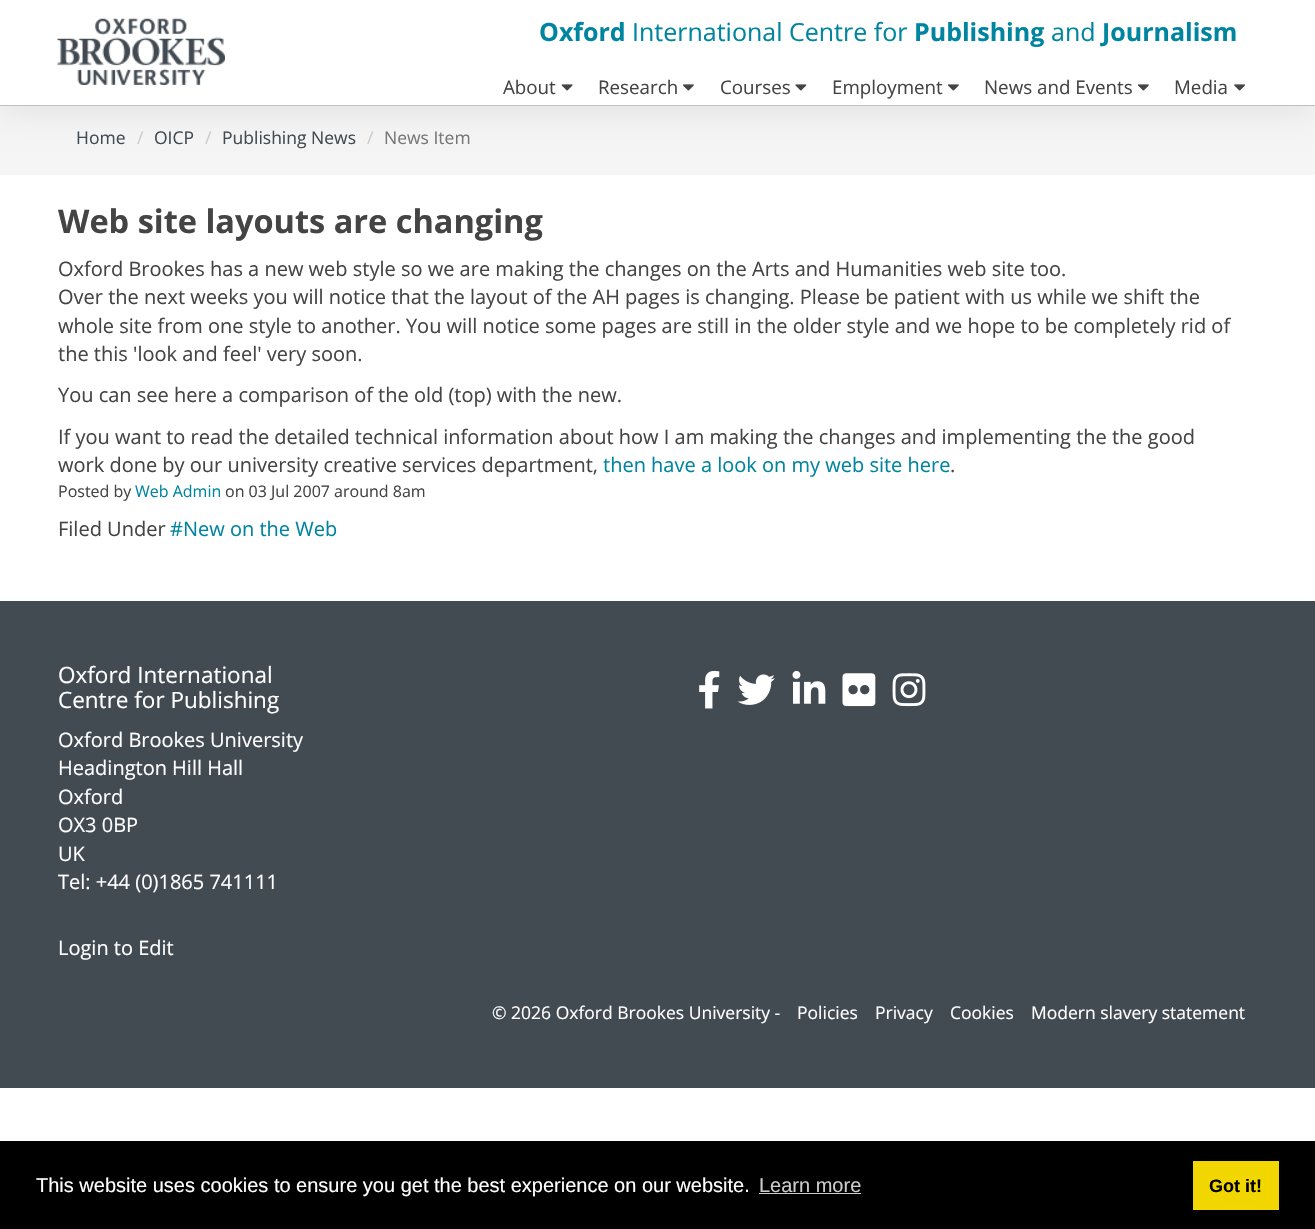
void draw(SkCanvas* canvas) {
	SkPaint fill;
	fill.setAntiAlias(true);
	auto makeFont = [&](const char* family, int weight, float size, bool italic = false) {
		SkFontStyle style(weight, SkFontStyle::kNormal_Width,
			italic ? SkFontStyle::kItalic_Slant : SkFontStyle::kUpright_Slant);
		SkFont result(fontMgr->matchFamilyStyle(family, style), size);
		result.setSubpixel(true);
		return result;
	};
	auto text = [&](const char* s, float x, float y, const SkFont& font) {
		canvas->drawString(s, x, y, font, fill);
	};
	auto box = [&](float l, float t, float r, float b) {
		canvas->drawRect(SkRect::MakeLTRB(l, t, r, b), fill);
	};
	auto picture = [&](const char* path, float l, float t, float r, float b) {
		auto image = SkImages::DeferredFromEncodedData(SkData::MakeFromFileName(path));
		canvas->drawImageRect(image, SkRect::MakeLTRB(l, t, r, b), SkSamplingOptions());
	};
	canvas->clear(0xFFFFFFFF);
	fill.setColor(0xFFF5F5F5);
	box(0, 106, 1315, 175);
	fill.setColor(0x1A000000);
	fill.setMaskFilter(SkMaskFilter::MakeBlur(kNormal_SkBlurStyle, 19));
	canvas->drawRect(SkRect::MakeLTRB(0, 0, 1315, 106), fill);
	fill.setMaskFilter(nullptr);
	fill.setColor(0xFFFFFFFF);
	box(0, 0, 1315, 105);
	fill.setColor(0xFFC0C0C0);
	box(0, 105, 1315, 106);
	picture("image0.png", 57, 18, 225, 85);
	picture("image1.png", 561, 84, 573, 91);
	picture("image2.png", 682, 84, 694, 91);
	picture("image3.png", 795, 84, 807, 91);
	picture("image2.png", 947, 84, 959, 91);
	picture("image2.png", 1137, 84, 1149, 91);
	picture("image4.png", 1234, 84, 1245, 91);
	fill.setColor(0xFF424A52);
	box(0, 601, 1315, 1088);
	picture("image5.png", 699, 670, 720, 709);
	picture("image6.png", 737, 674, 775, 705);
	picture("image7.png", 792, 670, 826, 704);
	picture("image8.png", 842, 673, 876, 707);
	picture("image9.png", 892, 673, 926, 707);
	fill.setColor(0xFF000000);
	box(0, 1141, 1315, 1229);
	fill.setColor(0xFFCCCCCC);
	box(759, 1193, 861, 1194);
	fill.setColor(0xFFF1D600);
	box(1193, 1161, 1279, 1210);
	auto font1 = makeFont("Open Sans", 700, 25);
	fill.setColor(0xFF0085A1);
	text("Oxford", 539, 41, font1);
	auto font2 = makeFont("Open Sans", 400, 25);
	text("International Centre for", 632, 41, font2);
	text("Publishing", 914, 41, font1);
	text("and", 1051, 41, font2);
	text("Journalism", 1102, 41, font1);
	auto font3 = makeFont("Open Sans", 400, 18.75f);
	fill.setColor(0xFF444444);
	text("About", 503, 94, font3);
	text("Research", 598, 94, font3);
	text("Courses", 720, 94, font3);
	text("Employment", 832, 94, font3);
	text("News and Events", 984, 94, font3);
	text("Media", 1174, 94, font3);
	auto font4 = makeFont("Open Sans", 400, 17.5f);
	fill.setColor(0xFF424A52);
	text("Home", 76, 144, font4);
	fill.setColor(0xFFCCCCCC);
	text("/", 137, 144, font4);
	fill.setColor(0xFF424A52);
	text("OICP", 154, 144, font4);
	fill.setColor(0xFFCCCCCC);
	text("/", 205, 144, font4);
	fill.setColor(0xFF424A52);
	text("Publishing News", 222, 144, font4);
	fill.setColor(0xFFCCCCCC);
	text("/", 367, 144, font4);
	fill.setColor(0xFF777777);
	text("News Item", 384, 144, font4);
	auto font5 = makeFont("Open Sans", 700, 32.5f);
	fill.setColor(0xFF444444);
	text("Web site layouts are changing", 58, 233, font5);
	auto font6 = makeFont("Open Sans", 400, 20);
	text("Oxford Brookes has a new web style so we are making the changes on the Arts and Humanities web site too.", 58, 276, font6);
	text("Over the next weeks you will notice that the layout of the AH pages is changing. Please be patient with us while we shift the", 58, 304, font6);
	text("whole site from one style to another. You will notice some pages are still in the older style and we hope to be completely rid of", 58, 333, font6);
	text("the this 'look and feel' very soon.", 58, 361, font6);
	text("You can see here a comparison of the old (top) with the new.", 58, 402, font6);
	text("If you want to read the detailed technical information about how I am making the changes and implementing the the good", 58, 444, font6);
	text("work done by our university creative services department,", 58, 472, font6);
	fill.setColor(0xFF0085A1);
	text("then have a look on my web site here", 603, 472, font6);
	fill.setColor(0xFF444444);
	text(".", 950, 472, font6);
	auto font7 = makeFont("Open Sans", 400, 16);
	text("Posted by", 58, 497, font7);
	fill.setColor(0xFF0085A1);
	text("Web Admin", 135, 497, font7);
	fill.setColor(0xFF444444);
	text("on 03 Jul 2007 around 8am", 225, 497, font7);
	text("Filed Under", 58, 536, font6);
	fill.setColor(0xFF0085A1);
	text("#New on the Web", 170, 536, font6);
	auto font8 = makeFont("Open Sans", 400, 22.5f);
	fill.setColor(0xFFFFFFFF);
	text("Oxford International", 58, 683, font8);
	text("Centre for Publishing", 58, 708, font8);
	text("Oxford Brookes University", 58, 747, font6);
	text("Headington Hill Hall", 58, 775, font6);
	text("Oxford", 58, 804, font6);
	text("OX3 0BP", 58, 832, font6);
	text("UK", 58, 861, font6);
	text("Tel: +44 (0)1865 741111", 58, 889, font6);
	text("Login to Edit", 58, 955, font6);
	text("© 2026 Oxford Brookes University -", 492, 1019, font4);
	text("Policies", 797, 1019, font4);
	text("Privacy", 875, 1019, font4);
	text("Cookies", 950, 1019, font4);
	text("Modern slavery statement", 1031, 1019, font4);
	auto font9 = makeFont("Liberation Sans", 400, 20);
	text("This website uses cookies to ensure you get the best experience on our website.", 36, 1192, font9);
	fill.setColor(0xFFCCCCCC);
	text("Learn more", 759, 1192, font9);
	auto font10 = makeFont("Liberation Sans", 700, 18);
	fill.setColor(0xFF000000);
	text("Got it!", 1209, 1192, font10);
}
